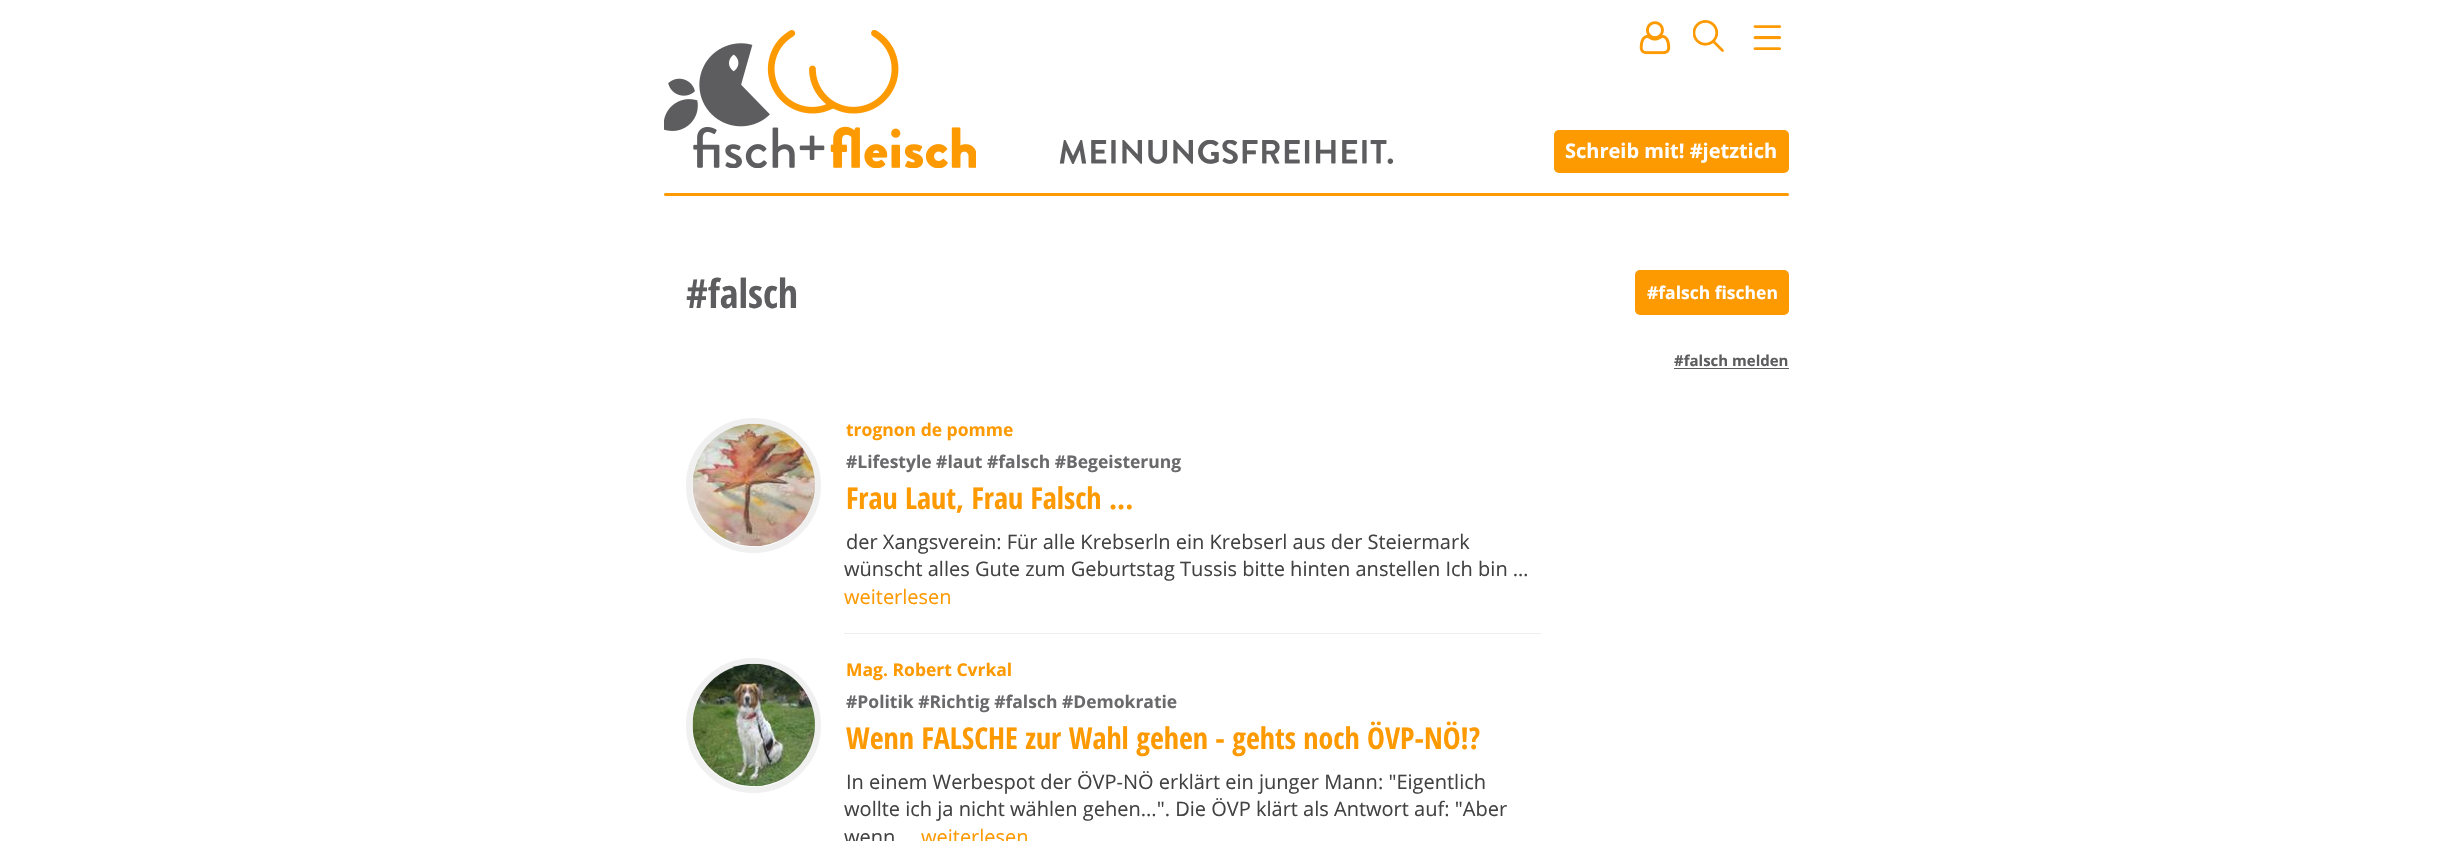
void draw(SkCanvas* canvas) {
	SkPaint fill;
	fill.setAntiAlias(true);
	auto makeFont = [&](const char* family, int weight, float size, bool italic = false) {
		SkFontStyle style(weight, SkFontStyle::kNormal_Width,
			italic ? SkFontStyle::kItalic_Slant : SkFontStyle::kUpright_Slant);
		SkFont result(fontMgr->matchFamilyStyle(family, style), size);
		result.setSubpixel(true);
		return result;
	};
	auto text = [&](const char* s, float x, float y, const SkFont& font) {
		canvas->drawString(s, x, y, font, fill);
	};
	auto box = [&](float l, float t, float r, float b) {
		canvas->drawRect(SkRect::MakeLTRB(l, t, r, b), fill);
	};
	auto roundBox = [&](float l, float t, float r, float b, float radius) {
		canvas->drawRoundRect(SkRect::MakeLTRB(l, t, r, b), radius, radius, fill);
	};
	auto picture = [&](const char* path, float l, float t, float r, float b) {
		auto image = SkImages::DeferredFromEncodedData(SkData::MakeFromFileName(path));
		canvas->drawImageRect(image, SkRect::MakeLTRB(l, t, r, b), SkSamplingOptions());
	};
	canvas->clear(0xFFFFFFFF);
	picture("image0.png", 1059, 140, 1394, 164);
	picture("image1.png", 664, 30, 976, 168);
	picture("image2.png", 1639, 21, 1671, 55);
	picture("image3.png", 1693, 20, 1724, 52);
	picture("image4.png", 1753, 25, 1782, 50);
	fill.setColor(0xFFFD9901);
	roundBox(1554, 130, 1789, 173, 5);
	roundBox(664, 193, 1789, 196, 1.5f);
	roundBox(1635, 270, 1789, 315, 5);
	fill.setColor(0xFF5D5D5F);
	box(1674, 368, 1789, 369);
	fill.setStyle(SkPaint::kStroke_Style);
	fill.setStrokeWidth(6);
	fill.setColor(0xFFF0F0F0);
	canvas->drawCircle(753.5f, 485.5f, 64.5f, fill);
	picture("image5.png", 692, 423, 815, 547);
	fill.setStyle(SkPaint::kFill_Style);
	fill.setColor(0xFFEEEEEE);
	box(844, 633, 1541, 634);
	fill.setStyle(SkPaint::kStroke_Style);
	fill.setColor(0xFFF0F0F0);
	canvas->drawCircle(753.5f, 725.5f, 64.5f, fill);
	picture("image6.png", 692, 663, 815, 787);
	auto font1 = makeFont("Open Sans", 700, 20);
	fill.setStyle(SkPaint::kFill_Style);
	fill.setColor(0xFFFFFFFF);
	text("Schreib mit! #jetztich", 1565, 158, font1);
	auto font2 = makeFont("Open Sans Condensed", 700, 40);
	fill.setColor(0xFF5D5D5F);
	text("#falsch", 686, 308, font2);
	auto font3 = makeFont("Open Sans", 700, 17.5f);
	fill.setColor(0xFFFFFFFF);
	text("#falsch fischen", 1647, 299, font3);
	auto font4 = makeFont("Open Sans", 700, 15);
	fill.setColor(0xFF5D5D5F);
	text("#falsch melden", 1674, 366, font4);
	fill.setColor(0xFFFD9901);
	text("trognon de pomme", 846, 436, font3);
	fill.setColor(0xFF6A6A6C);
	text("#Lifestyle #laut #falsch #Begeisterung", 846, 468, font3);
	auto font5 = makeFont("Open Sans Condensed", 700, 30);
	fill.setColor(0xFFFD9901);
	text("Frau Laut, Frau Falsch ...", 846, 509, font5);
	auto font6 = makeFont("Open Sans", 400, 20);
	fill.setColor(0xFF424242);
	text("der Xangsverein: Für alle Krebserln ein Krebserl aus der Steiermark", 846, 549, font6);
	text("wünscht alles Gute zum Geburtstag Tussis bitte hinten anstellen Ich bin …", 844, 576, font6);
	fill.setColor(0xFFFD9901);
	text("weiterlesen", 844, 604, font6);
	text("Mag. Robert Cvrkal", 846, 676, font3);
	fill.setColor(0xFF6A6A6C);
	text("#Politik #Richtig #falsch #Demokratie", 846, 708, font3);
	fill.setColor(0xFFFD9901);
	text("Wenn FALSCHE zur Wahl gehen - gehts noch ÖVP-NÖ!?", 846, 749, font5);
	fill.setColor(0xFF424242);
	text("In einem Werbespot der ÖVP-NÖ erklärt ein junger Mann: \"Eigentlich", 846, 789, font6);
	text("wollte ich ja nicht wählen gehen...\". Die ÖVP klärt als Antwort auf: \"Aber", 844, 816, font6);
	text("wenn", 844, 844, font6);
	fill.setColor(0xFFFD9901);
	text("weiterlesen", 921, 844, font6);
}
